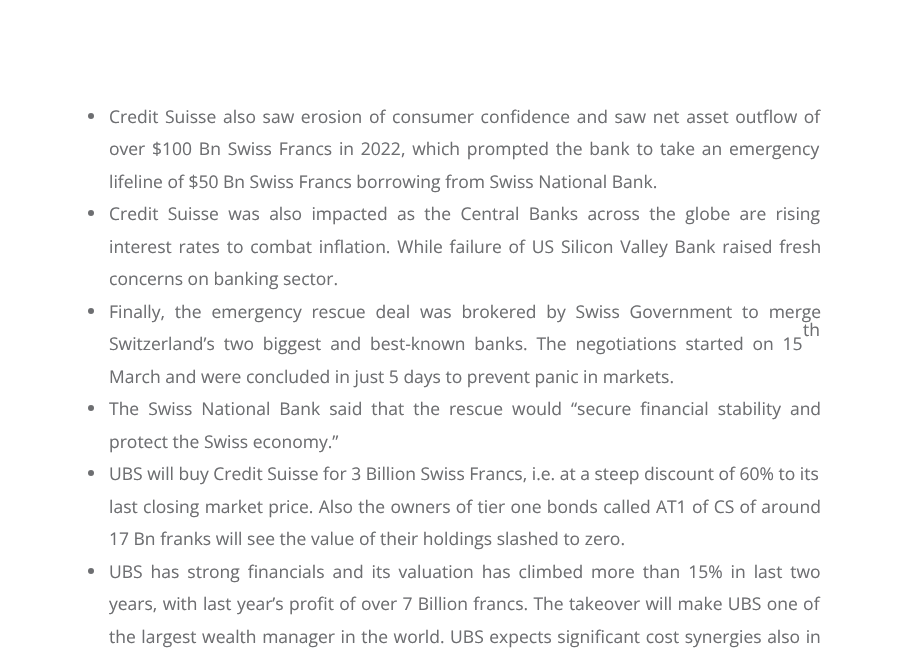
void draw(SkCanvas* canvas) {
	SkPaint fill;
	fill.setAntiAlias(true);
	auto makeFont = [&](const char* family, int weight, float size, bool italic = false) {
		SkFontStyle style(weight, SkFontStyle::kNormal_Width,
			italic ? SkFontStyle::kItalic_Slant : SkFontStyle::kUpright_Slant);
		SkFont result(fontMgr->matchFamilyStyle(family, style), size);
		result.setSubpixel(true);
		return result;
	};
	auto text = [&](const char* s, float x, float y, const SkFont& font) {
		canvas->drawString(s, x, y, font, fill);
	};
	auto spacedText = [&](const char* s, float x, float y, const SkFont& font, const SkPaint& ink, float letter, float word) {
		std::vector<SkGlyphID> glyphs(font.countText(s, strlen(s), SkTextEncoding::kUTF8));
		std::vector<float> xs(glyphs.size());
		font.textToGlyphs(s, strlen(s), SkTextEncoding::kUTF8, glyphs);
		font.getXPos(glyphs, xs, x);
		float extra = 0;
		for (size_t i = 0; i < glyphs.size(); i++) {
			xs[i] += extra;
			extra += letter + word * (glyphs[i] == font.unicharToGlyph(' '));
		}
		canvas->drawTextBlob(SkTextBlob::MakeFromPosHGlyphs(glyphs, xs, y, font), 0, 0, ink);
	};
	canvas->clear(0xFFFFFFFF);
	fill.setColor(0xFF6D6E71);
	canvas->drawCircle(91, 116, 3, fill);
	canvas->drawCircle(91, 213, 3, fill);
	canvas->drawCircle(91, 311, 3, fill);
	canvas->drawCircle(91, 408, 3, fill);
	canvas->drawCircle(91, 473, 3, fill);
	canvas->drawCircle(91, 571, 3, fill);
	auto font1 = makeFont("Open Sans", 400, 17.5f);
	spacedText("Credit Suisse also saw erosion of consumer confidence and saw net asset outflow of", 109, 123, font1, fill, 0, 2.1f);
	spacedText("over $100 Bn Swiss Francs in 2022, which prompted the bank to take an emergency", 109, 155, font1, fill, 0, 2.25f);
	text("lifeline of $50 Bn Swiss Francs borrowing from Swiss National Bank.", 109, 188, font1);
	spacedText("Credit Suisse was also impacted as the Central Banks across the globe are rising", 109, 220, font1, fill, 0, 4.75f);
	spacedText("interest rates to combat inflation. While failure of US Silicon Valley Bank raised fresh", 109, 253, font1, fill, 0, 2.25f);
	text("concerns on banking sector.", 109, 285, font1);
	spacedText("Finally, the emergency rescue deal was brokered by Swiss Government to merge", 109, 318, font1, fill, 0, 5.25f);
	text("th", 803, 336, font1);
	spacedText("Switzerland’s two biggest and best-known banks. The negotiations started on 15", 109, 350, font1, fill, 0, 4.25f);
	text("March and were concluded in just 5 days to prevent panic in markets.", 109, 383, font1);
	spacedText("The Swiss National Bank said that the rescue would “secure financial stability and", 109, 415, font1, fill, 0, 4.4f);
	text("protect the Swiss economy.”", 109, 448, font1);
	text("UBS will buy Credit Suisse for 3 Billion Swiss Francs, i.e. at a steep discount of 60% to its", 109, 480, font1);
	spacedText("last closing market price. Also the owners of tier one bonds called AT1 of CS of around", 109, 513, font1, fill, 0, 0.75f);
	text("17 Bn franks will see the value of their holdings slashed to zero.", 109, 545, font1);
	spacedText("UBS has strong financials and its valuation has climbed more than 15% in last two", 109, 578, font1, fill, 0, 3.4f);
	spacedText("years, with last year’s profit of over 7 Billion francs. The takeover will make UBS one of", 109, 610, font1, fill, 0, 0.75f);
	spacedText("the largest wealth manager in the world. UBS expects significant cost synergies also in", 109, 643, font1, fill, 0, 1);
}
